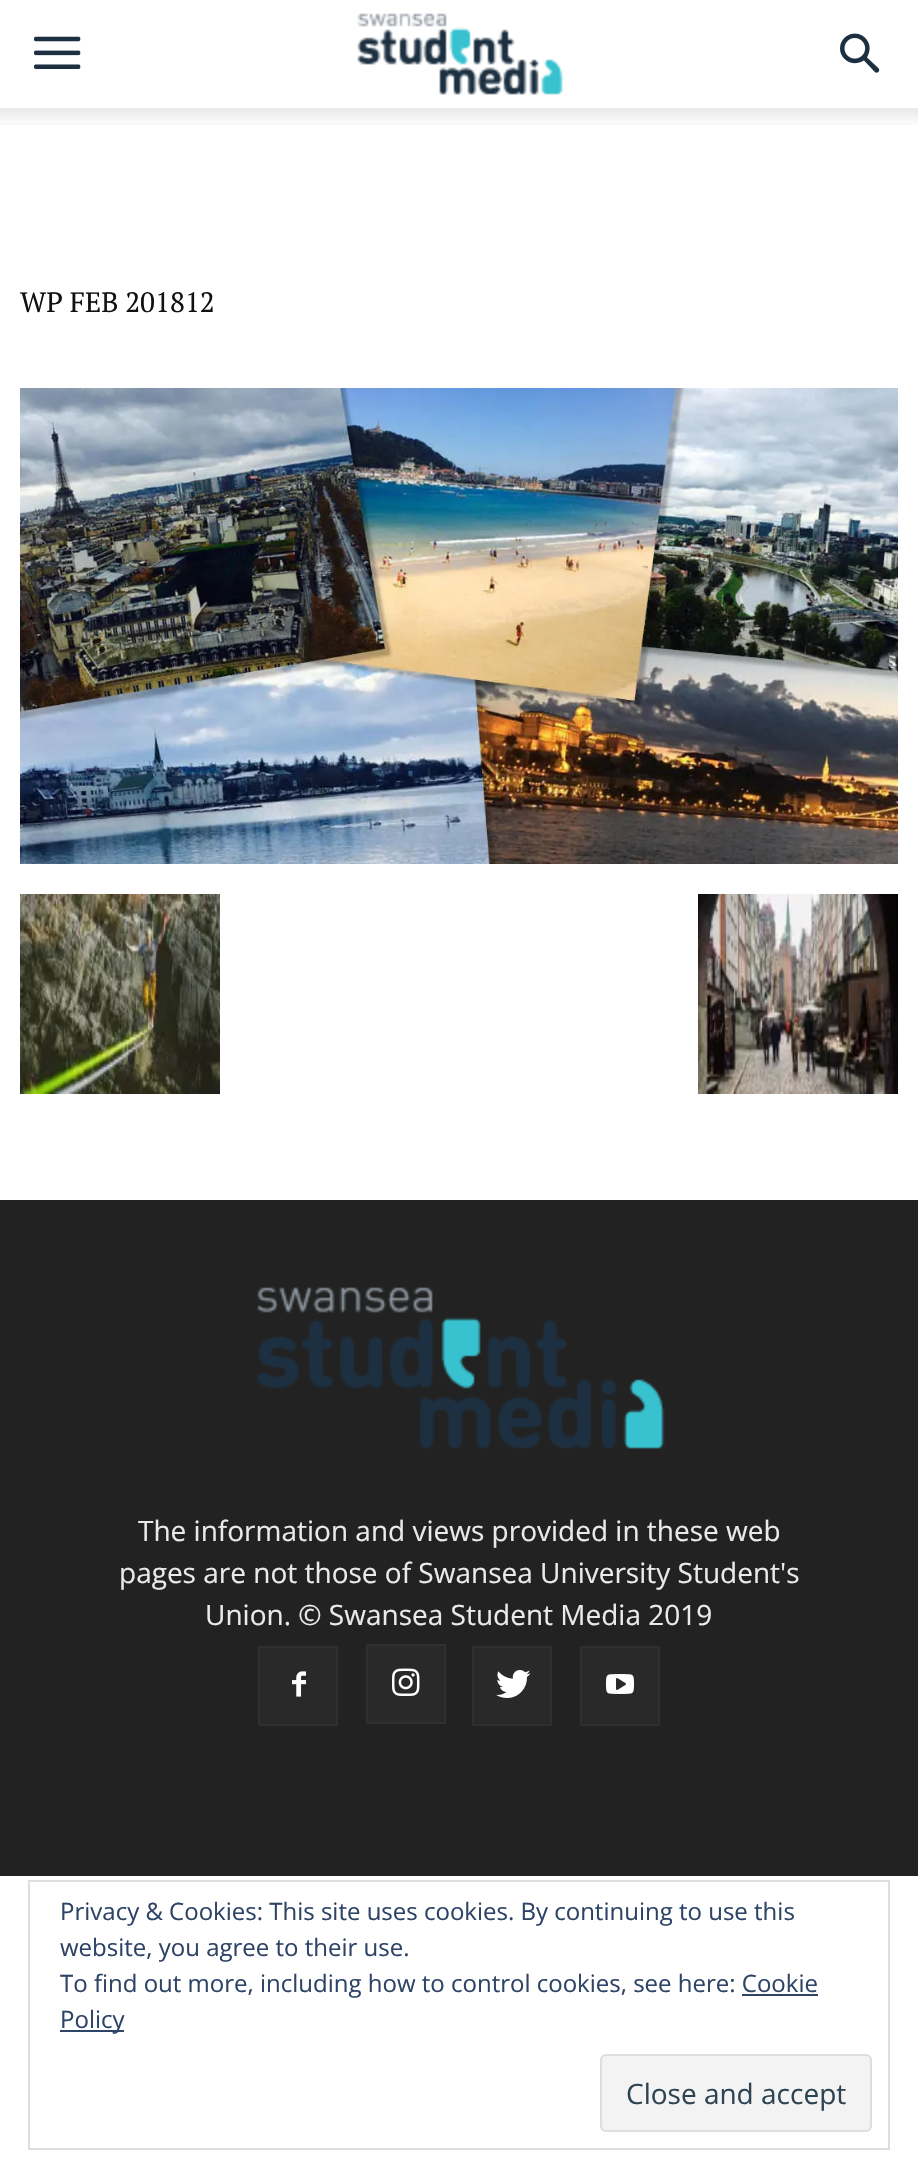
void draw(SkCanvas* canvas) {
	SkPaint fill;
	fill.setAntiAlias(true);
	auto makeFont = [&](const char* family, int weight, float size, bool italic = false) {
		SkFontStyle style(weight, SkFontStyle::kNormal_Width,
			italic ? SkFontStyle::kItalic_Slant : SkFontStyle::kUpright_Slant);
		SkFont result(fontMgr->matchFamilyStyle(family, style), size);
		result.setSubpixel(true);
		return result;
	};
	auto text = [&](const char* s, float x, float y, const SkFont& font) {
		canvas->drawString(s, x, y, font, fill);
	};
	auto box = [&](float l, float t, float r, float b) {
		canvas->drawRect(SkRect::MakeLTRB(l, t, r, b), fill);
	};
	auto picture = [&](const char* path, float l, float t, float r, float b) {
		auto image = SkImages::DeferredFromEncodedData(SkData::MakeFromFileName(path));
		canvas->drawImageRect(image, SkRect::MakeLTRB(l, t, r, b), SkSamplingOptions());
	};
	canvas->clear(0xFFFFFFFF);
	picture("image0.png", 34, 36, 81, 69);
	picture("image1.png", 357, 13, 563, 95);
	picture("image2.png", 840, 33, 880, 73);
	picture("image3.png", 0, 108, 918, 125);
	picture("image4.png", 20, 388, 898, 864);
	picture("image5.png", 20, 894, 220, 1094);
	picture("image6.png", 698, 894, 898, 1094);
	fill.setColor(0xFF222222);
	box(0, 1200, 918, 1876);
	picture("image7.png", 256, 1287, 665, 1449);
	fill.setColor(0xFF292929);
	box(260, 1648, 336, 1724);
	picture("image8.png", 292, 1671, 306, 1697);
	fill.setStyle(SkPaint::kStroke_Style);
	fill.setStrokeWidth(2);
	fill.setColor(0xFF2F2F2F);
	canvas->drawRect(SkRect::MakeLTRB(259, 1647, 337, 1725), fill);
	fill.setStyle(SkPaint::kFill_Style);
	fill.setColor(0xFF292929);
	box(368, 1646, 444, 1722);
	picture("image9.png", 392, 1668, 420, 1696);
	fill.setStyle(SkPaint::kStroke_Style);
	fill.setColor(0xFF2F2F2F);
	canvas->drawRect(SkRect::MakeLTRB(367, 1645, 445, 1723), fill);
	fill.setStyle(SkPaint::kFill_Style);
	fill.setColor(0xFF292929);
	box(474, 1648, 550, 1724);
	picture("image10.png", 496, 1670, 531, 1698);
	fill.setStyle(SkPaint::kStroke_Style);
	fill.setColor(0xFF2F2F2F);
	canvas->drawRect(SkRect::MakeLTRB(473, 1647, 551, 1725), fill);
	fill.setStyle(SkPaint::kFill_Style);
	fill.setColor(0xFF292929);
	box(582, 1648, 658, 1724);
	picture("image11.png", 606, 1674, 634, 1694);
	fill.setStyle(SkPaint::kStroke_Style);
	fill.setColor(0xFF2F2F2F);
	canvas->drawRect(SkRect::MakeLTRB(581, 1647, 659, 1725), fill);
	fill.setColor(0xFFDEDEDE);
	canvas->drawRect(SkRect::MakeLTRB(29, 1881, 889, 2149), fill);
	fill.setStyle(SkPaint::kFill_Style);
	fill.setColor(0xFF2E4467);
	box(742, 1994, 818, 1996);
	box(60, 2030, 124, 2032);
	fill.setColor(0xFFF3F3F3);
	canvas->drawRoundRect(SkRect::MakeLTRB(601, 2055, 871, 2131), 5, 5, fill);
	fill.setStyle(SkPaint::kStroke_Style);
	fill.setColor(0xFFDEDEDE);
	canvas->drawRoundRect(SkRect::MakeLTRB(601, 2055, 871, 2131), 5, 5, fill);
	auto font1 = makeFont("PT Serif", 400, 28);
	fill.setStyle(SkPaint::kFill_Style);
	fill.setColor(0xFF111111);
	text("WP FEB 201812", 20, 312, font1);
	auto font2 = makeFont("Open Sans", 400, 28);
	fill.setColor(0xFFEAEAEA);
	text("The information and views provided in these web", 138, 1541, font2);
	text("pages are not those of Swansea University Student's", 119, 1583, font2);
	text("Union. © Swansea Student Media 2019", 205, 1625, font2);
	auto font3 = makeFont("Open Sans", 400, 24);
	fill.setColor(0xFF2E4467);
	text("Privacy & Cookies: This site uses cookies. By continuing to use this", 60, 1920, font3);
	text("website, you agree to their use.", 60, 1956, font3);
	text("To find out more, including how to control cookies, see here: Cookie", 60, 1992, font3);
	text("Policy", 60, 2028, font3);
	fill.setColor(0xFF2E4453);
	text("Close and accept", 626, 2104, font2);
}
